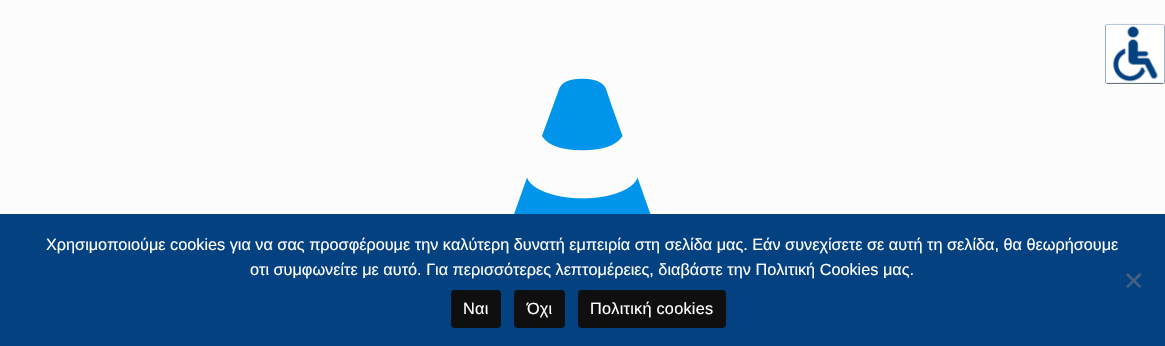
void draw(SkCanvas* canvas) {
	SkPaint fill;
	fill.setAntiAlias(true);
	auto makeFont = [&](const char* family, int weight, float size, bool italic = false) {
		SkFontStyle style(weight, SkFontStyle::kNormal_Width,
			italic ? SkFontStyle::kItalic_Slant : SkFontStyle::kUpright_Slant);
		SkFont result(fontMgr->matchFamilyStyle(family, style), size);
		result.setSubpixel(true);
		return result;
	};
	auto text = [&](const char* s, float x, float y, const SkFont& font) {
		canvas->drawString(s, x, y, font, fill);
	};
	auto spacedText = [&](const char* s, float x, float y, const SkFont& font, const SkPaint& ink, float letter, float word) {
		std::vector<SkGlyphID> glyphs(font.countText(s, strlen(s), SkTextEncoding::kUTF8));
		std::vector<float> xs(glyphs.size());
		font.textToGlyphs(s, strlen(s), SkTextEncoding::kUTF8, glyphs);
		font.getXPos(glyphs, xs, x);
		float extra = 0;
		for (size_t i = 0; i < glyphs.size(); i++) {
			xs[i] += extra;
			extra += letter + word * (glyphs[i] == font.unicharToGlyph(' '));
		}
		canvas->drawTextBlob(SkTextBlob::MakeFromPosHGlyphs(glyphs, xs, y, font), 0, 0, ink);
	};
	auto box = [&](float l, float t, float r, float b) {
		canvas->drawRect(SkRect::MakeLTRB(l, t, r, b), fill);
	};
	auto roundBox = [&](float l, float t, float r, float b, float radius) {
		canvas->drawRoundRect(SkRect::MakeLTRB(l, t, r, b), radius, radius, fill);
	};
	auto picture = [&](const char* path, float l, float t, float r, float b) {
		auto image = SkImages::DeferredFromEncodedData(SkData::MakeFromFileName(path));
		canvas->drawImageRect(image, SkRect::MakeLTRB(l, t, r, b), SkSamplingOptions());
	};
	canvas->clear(0xFFFCFCFC);
	fill.setColor(0xFF232323);
	roundBox(1105, 24, 1165, 84, 4);
	picture("image0.png", 1105, 23, 1165, 84);
	picture("image1.png", 514, 78, 651, 214);
	fill.setColor(0xFF034181);
	box(0, 214, 1165, 346);
	fill.setColor(0xFF426181);
	canvas->drawPath(SkPathBuilder().moveTo(1139.5f, 273).lineTo(1141.5f, 275).lineTo(1128, 288).lineTo(1126, 286.5f).close().detach(), fill);
	canvas->drawPath(SkPathBuilder().moveTo(1126, 275).lineTo(1128, 273).lineTo(1141.5f, 286.5f).lineTo(1139.5f, 288).close().detach(), fill);
	fill.setColor(0xFF0F0F0F);
	roundBox(451, 290, 501, 328, 4);
	roundBox(514, 290, 565, 328, 4);
	roundBox(578, 290, 726, 328, 4);
	auto font1 = makeFont("Liberation Sans", 400, 16.25f);
	fill.setColor(0xFFFFFFFF);
	text("Χρησιμοποιούμε cookies για να σας προσφέρουμε την καλύτερη δυνατή εμπειρία στη σελίδα μας. Εάν συνεχίσετε σε αυτή τη σελίδα, θα θεωρήσουμε", 46, 250, font1);
	text("οτι συμφωνείτε με αυτό. Για περισσότερες λεπτομέρειες, διαβάστε την Πολιτική Cookies μας.", 250, 275, font1);
	spacedText("Ναι", 463, 314, font1, fill, 0.25f, 0);
	spacedText("Όχι", 527, 314, font1, fill, 0.25f, 0);
	spacedText("Πολιτική cookies", 590, 314, font1, fill, 0.25f, 0);
}
